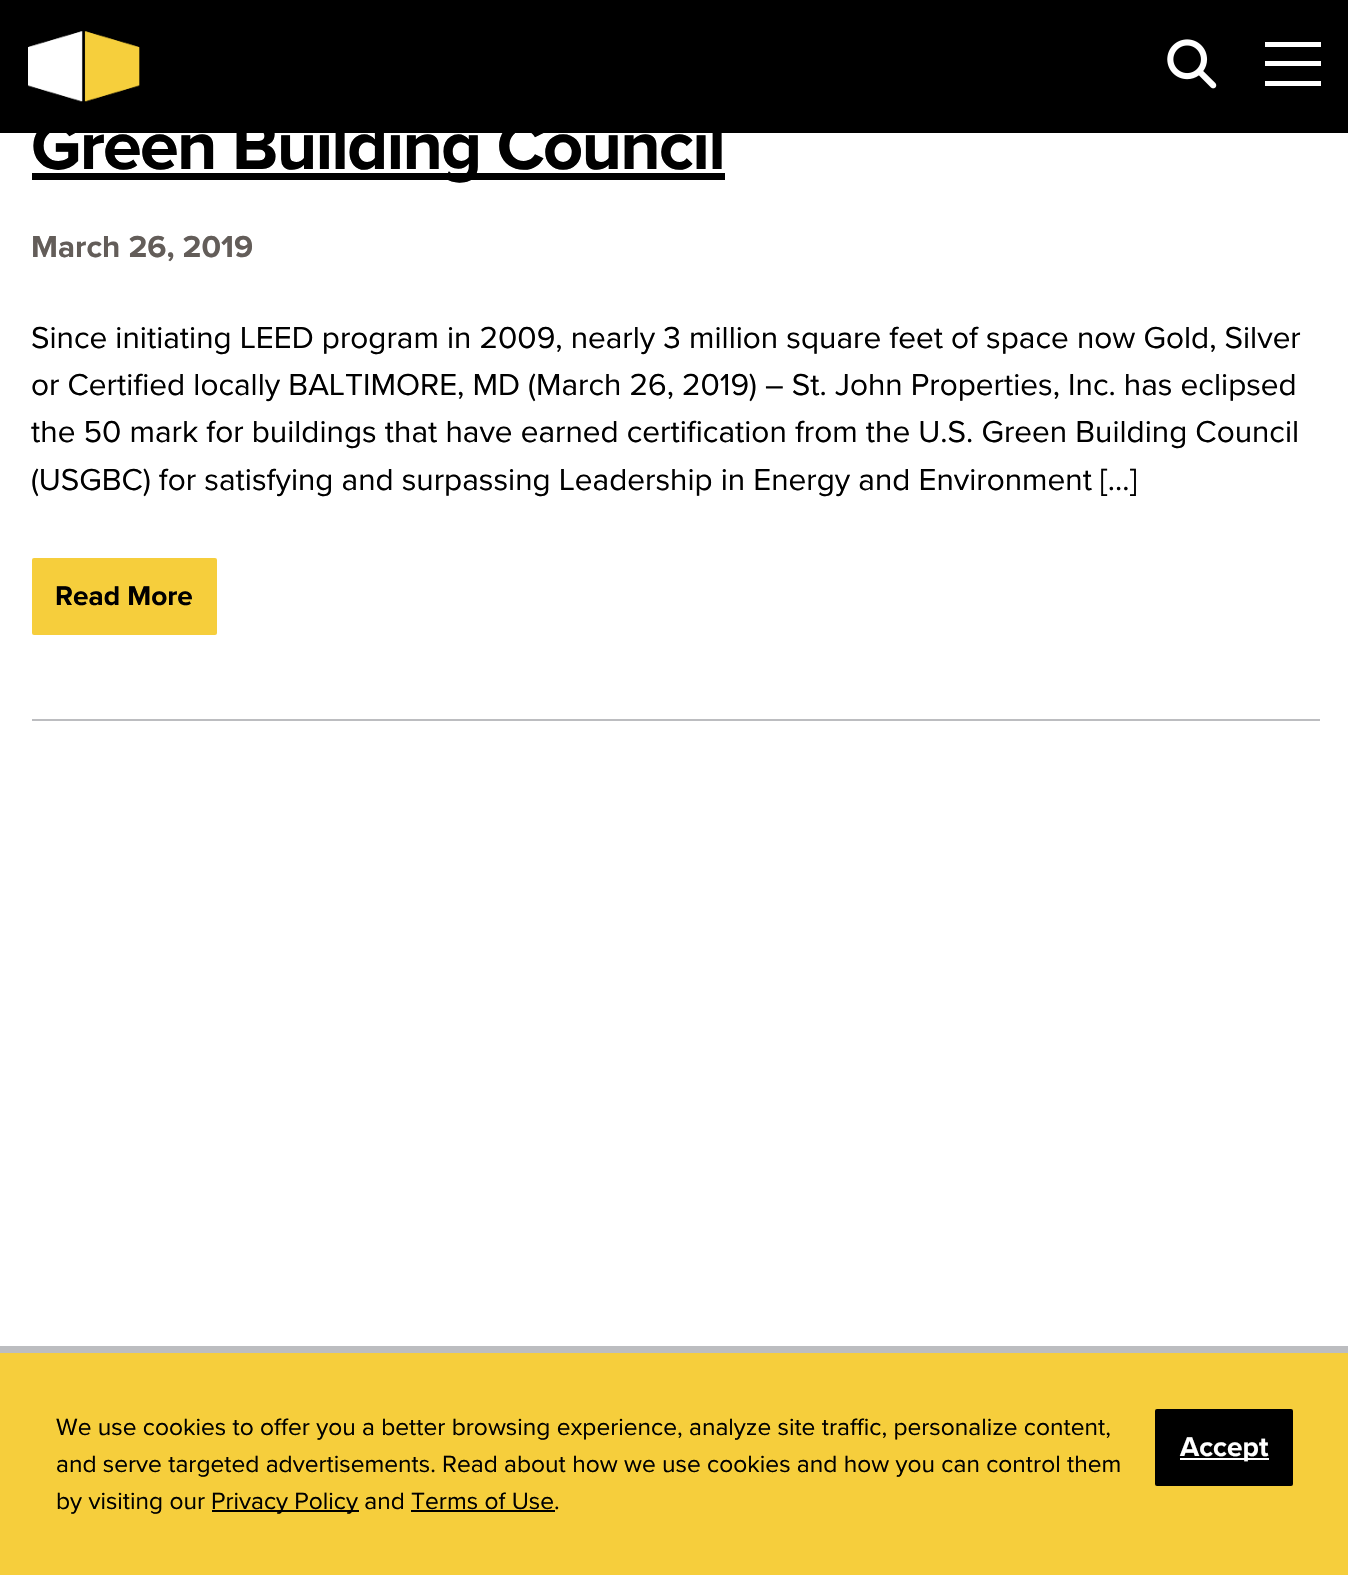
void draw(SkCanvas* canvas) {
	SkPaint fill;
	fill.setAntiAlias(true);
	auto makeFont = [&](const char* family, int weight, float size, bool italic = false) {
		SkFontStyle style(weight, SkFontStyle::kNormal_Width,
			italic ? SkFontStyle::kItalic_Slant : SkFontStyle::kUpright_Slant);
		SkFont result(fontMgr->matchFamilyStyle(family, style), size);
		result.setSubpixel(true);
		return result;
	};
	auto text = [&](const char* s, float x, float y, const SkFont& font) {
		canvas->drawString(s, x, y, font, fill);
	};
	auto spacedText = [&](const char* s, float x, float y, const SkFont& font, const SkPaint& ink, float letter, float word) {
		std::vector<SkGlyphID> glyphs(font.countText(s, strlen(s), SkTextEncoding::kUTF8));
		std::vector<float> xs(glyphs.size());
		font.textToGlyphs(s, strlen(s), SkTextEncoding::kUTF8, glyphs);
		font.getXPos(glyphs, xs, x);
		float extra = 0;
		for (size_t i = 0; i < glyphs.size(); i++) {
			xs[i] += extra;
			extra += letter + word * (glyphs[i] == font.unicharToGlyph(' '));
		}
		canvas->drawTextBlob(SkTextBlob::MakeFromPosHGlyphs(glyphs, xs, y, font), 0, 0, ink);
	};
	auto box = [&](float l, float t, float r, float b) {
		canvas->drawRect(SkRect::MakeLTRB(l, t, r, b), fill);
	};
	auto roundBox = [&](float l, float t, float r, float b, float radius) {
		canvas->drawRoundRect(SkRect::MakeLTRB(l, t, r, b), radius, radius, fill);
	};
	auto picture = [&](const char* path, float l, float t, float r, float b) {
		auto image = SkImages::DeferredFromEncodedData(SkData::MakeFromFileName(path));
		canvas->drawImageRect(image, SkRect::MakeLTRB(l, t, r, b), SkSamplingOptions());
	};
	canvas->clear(0xFFFFFFFF);
	fill.setColor(0xFF000000);
	box(0, 0, 1348, 133);
	picture("image0.png", 28, 31, 140, 102);
	picture("image1.png", 1167, 39, 1217, 89);
	fill.setColor(0xFFFFFFFF);
	box(1265, 42, 1321, 47);
	box(1265, 61, 1321, 66);
	box(1265, 81, 1321, 86);
	fill.setColor(0xFF000000);
	box(32, 173, 725, 180);
	fill.setColor(0xFFF6CE3C);
	roundBox(32, 558, 217, 635, 2);
	fill.setColor(0xFFBCBDC0);
	box(32, 719, 1320, 721);
	fill.setColor(0xFFF6CE3C);
	box(0, 1353, 1348, 1575);
	fill.setColor(0xFFBCBDC0);
	box(0, 1346, 1348, 1353);
	fill.setColor(0xFF000000);
	box(212, 1510, 359, 1512);
	box(411, 1510, 555, 1512);
	roundBox(1155, 1409, 1293, 1486, 2);
	fill.setColor(0xFFFFFFFF);
	box(1180, 1458, 1269, 1460);
	auto font1 = makeFont("Proxima Nova", 700, 70);
	fill.setColor(0xFF000000);
	spacedText("Green Building Council", 31, 169, font1, fill, -1.75f, 0);
	auto font2 = makeFont("Proxima Nova", 700, 31.5f);
	fill.setColor(0xFF635D59);
	text("March 26, 2019", 31, 257, font2);
	auto font3 = makeFont("Proxima Nova", 400, 31.5f);
	fill.setColor(0xFF000000);
	text("Since initiating LEED program in 2009, nearly 3 million square feet of space now Gold, Silver", 31, 348, font3);
	text("or Certified locally BALTIMORE, MD (March 26, 2019) – St. John Properties, Inc. has eclipsed", 31, 395, font3);
	text("the 50 mark for buildings that have earned certification from the U.S. Green Building Council", 31, 442, font3);
	text("(USGBC) for satisfying and surpassing Leadership in Energy and Environment […]", 31, 490, font3);
	auto font4 = makeFont("Proxima Nova", 700, 28);
	text("Read More", 55, 605, font4);
	auto font5 = makeFont("Proxima Nova", 400, 24.5f);
	text("We use cookies to offer you a better browsing experience, analyze site traffic, personalize content,", 56, 1435, font5);
	text("and serve targeted advertisements. Read about how we use cookies and how you can control them", 56, 1472, font5);
	text("by visiting our", 56, 1509, font5);
	text("Privacy Policy and Terms of Use.", 211, 1509, font5);
	fill.setColor(0xFFFFFFFF);
	text("Accept", 1180, 1456, font4);
}
